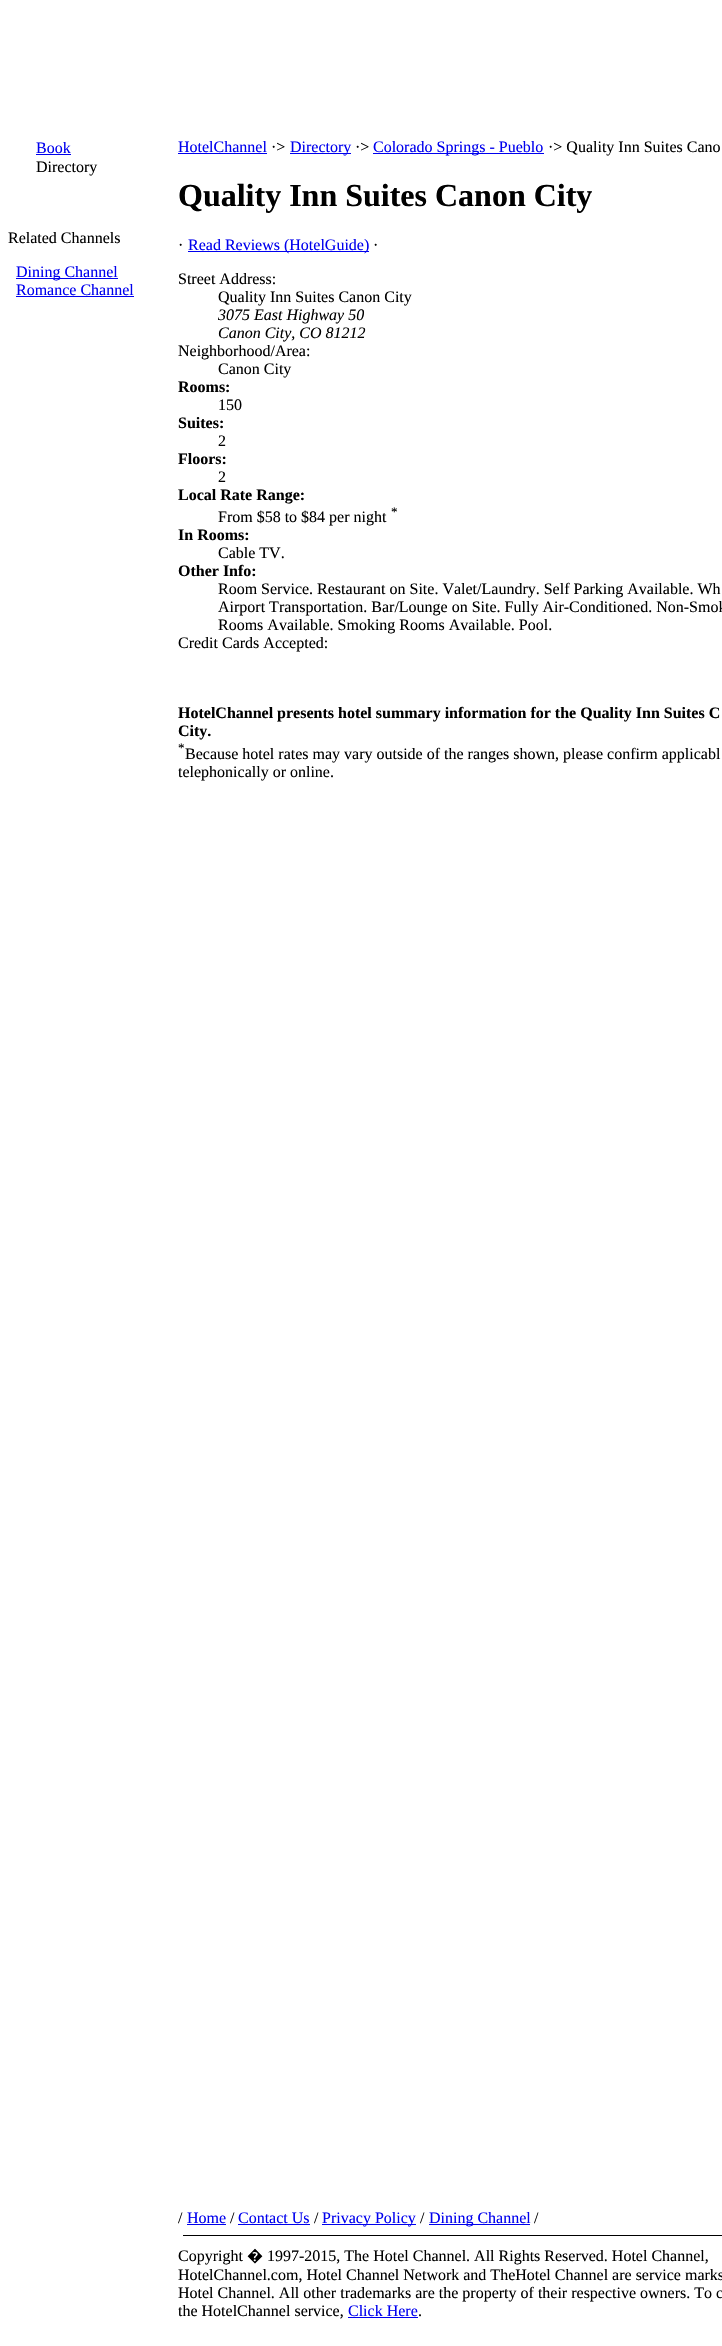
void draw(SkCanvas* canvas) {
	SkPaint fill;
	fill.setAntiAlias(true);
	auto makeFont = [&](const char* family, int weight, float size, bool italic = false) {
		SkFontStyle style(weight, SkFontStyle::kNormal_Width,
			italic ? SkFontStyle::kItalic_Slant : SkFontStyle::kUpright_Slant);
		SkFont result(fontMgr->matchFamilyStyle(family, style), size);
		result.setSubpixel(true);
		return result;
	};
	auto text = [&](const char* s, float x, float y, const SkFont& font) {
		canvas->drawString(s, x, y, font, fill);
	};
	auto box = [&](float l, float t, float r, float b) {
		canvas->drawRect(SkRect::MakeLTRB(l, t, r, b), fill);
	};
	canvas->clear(0xFFFFFFFF);
	fill.setColor(0xFF0000EE);
	box(36, 154, 71, 155);
	box(16, 278, 118, 279);
	box(16, 296, 134, 297);
	box(178, 153, 267, 154);
	box(290, 153, 351, 154);
	box(373, 153, 544, 154);
	box(188, 251, 369, 252);
	box(187, 2224, 226, 2225);
	box(238, 2224, 310, 2225);
	box(322, 2224, 416, 2225);
	box(429, 2224, 530, 2225);
	fill.setColor(0xFF000000);
	box(183, 2235, 722, 2236);
	fill.setColor(0xFF0000EE);
	box(348, 2317, 418, 2318);
	auto font1 = makeFont("Liberation Serif", 400, 16);
	text("Book", 36, 153, font1);
	fill.setColor(0xFF000000);
	text("Directory", 36, 172, font1);
	text("Related Channels", 8, 243, font1);
	fill.setColor(0xFF0000EE);
	text("Dining Channel", 16, 277, font1);
	text("Romance Channel", 16, 295, font1);
	text("HotelChannel", 178, 152, font1);
	fill.setColor(0xFF000000);
	text("·>", 271, 152, font1);
	fill.setColor(0xFF0000EE);
	text("Directory", 290, 152, font1);
	fill.setColor(0xFF000000);
	text("·>", 355, 152, font1);
	fill.setColor(0xFF0000EE);
	text("Colorado Springs - Pueblo", 373, 152, font1);
	fill.setColor(0xFF000000);
	text("·> Quality Inn Suites Cano", 548, 152, font1);
	auto font2 = makeFont("Liberation Serif", 700, 32);
	text("Quality Inn Suites Canon City", 178, 206, font2);
	text("·", 178, 250, font1);
	fill.setColor(0xFF0000EE);
	text("Read Reviews (HotelGuide)", 188, 250, font1);
	fill.setColor(0xFF000000);
	text("·", 373, 250, font1);
	text("Street Address:", 178, 284, font1);
	text("Quality Inn Suites Canon City", 218, 302, font1);
	auto font3 = makeFont("Liberation Serif", 400, 16, true);
	text("3075 East Highway 50", 218, 320, font3);
	text("Canon City, CO 81212", 218, 338, font3);
	text("Neighborhood/Area:", 178, 356, font1);
	text("Canon City", 218, 374, font1);
	auto font4 = makeFont("Liberation Serif", 700, 16);
	text("Rooms:", 178, 392, font4);
	text("150", 218, 410, font1);
	text("Suites:", 178, 428, font4);
	text("2", 218, 446, font1);
	text("Floors:", 178, 464, font4);
	text("2", 218, 482, font1);
	text("Local Rate Range:", 178, 500, font4);
	text("From $58 to $84 per night", 218, 522, font1);
	auto font5 = makeFont("Liberation Serif", 400, 13);
	text("*", 391, 516, font5);
	text("In Rooms:", 178, 540, font4);
	text("Cable TV.", 218, 558, font1);
	text("Other Info:", 178, 576, font4);
	text("Room Service. Restaurant on Site. Valet/Laundry. Self Parking Available. Wh", 218, 594, font1);
	text("Airport Transportation. Bar/Lounge on Site. Fully Air-Conditioned. Non-Smok", 218, 612, font1);
	text("Rooms Available. Smoking Rooms Available. Pool.", 218, 630, font1);
	text("Credit Cards Accepted:", 178, 648, font1);
	text("HotelChannel presents hotel summary information for the Quality Inn Suites C", 178, 718, font4);
	text("City.", 178, 736, font4);
	text("*", 178, 752, font5);
	text("Because hotel rates may vary outside of the ranges shown, please confirm applicabl", 185, 759, font1);
	text("telephonically or online.", 178, 777, font1);
	text("/", 178, 2223, font1);
	fill.setColor(0xFF0000EE);
	text("Home", 187, 2223, font1);
	fill.setColor(0xFF000000);
	text("/", 230, 2223, font1);
	fill.setColor(0xFF0000EE);
	text("Contact Us", 238, 2223, font1);
	fill.setColor(0xFF000000);
	text("/", 314, 2223, font1);
	fill.setColor(0xFF0000EE);
	text("Privacy Policy", 322, 2223, font1);
	fill.setColor(0xFF000000);
	text("/", 420, 2223, font1);
	fill.setColor(0xFF0000EE);
	text("Dining Channel", 429, 2223, font1);
	fill.setColor(0xFF000000);
	text("/", 534, 2223, font1);
	text("Copyright", 178, 2261, font1);
	auto font6 = makeFont("Noto Sans", 400, 16);
	text("�", 247, 2261, font6);
	text("1997-2015, The Hotel Channel. All Rights Reserved. Hotel Channel,", 267, 2261, font1);
	text("HotelChannel.com, Hotel Channel Network and TheHotel Channel are service marks", 178, 2280, font1);
	text("Hotel Channel. All other trademarks are the property of their respective owners. To c", 178, 2298, font1);
	text("the HotelChannel service,", 178, 2316, font1);
	fill.setColor(0xFF0000EE);
	text("Click Here", 348, 2316, font1);
	fill.setColor(0xFF000000);
	text(".", 418, 2316, font1);
}
